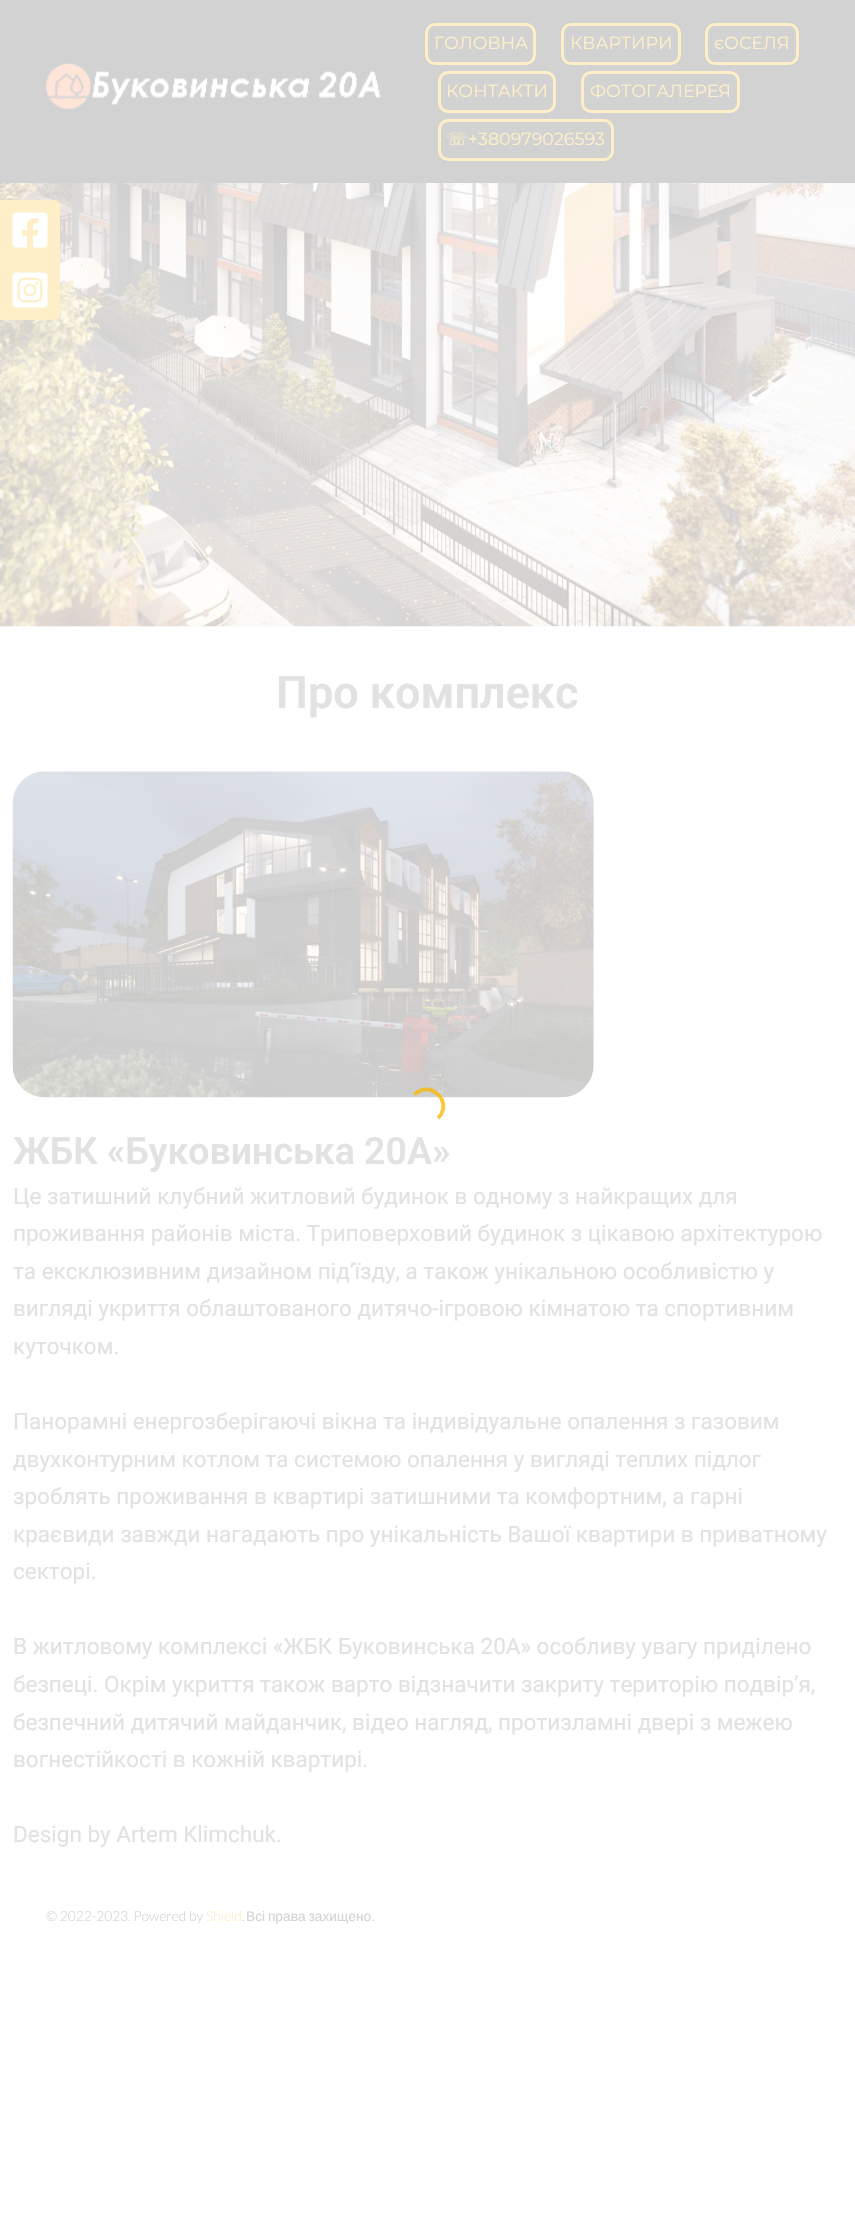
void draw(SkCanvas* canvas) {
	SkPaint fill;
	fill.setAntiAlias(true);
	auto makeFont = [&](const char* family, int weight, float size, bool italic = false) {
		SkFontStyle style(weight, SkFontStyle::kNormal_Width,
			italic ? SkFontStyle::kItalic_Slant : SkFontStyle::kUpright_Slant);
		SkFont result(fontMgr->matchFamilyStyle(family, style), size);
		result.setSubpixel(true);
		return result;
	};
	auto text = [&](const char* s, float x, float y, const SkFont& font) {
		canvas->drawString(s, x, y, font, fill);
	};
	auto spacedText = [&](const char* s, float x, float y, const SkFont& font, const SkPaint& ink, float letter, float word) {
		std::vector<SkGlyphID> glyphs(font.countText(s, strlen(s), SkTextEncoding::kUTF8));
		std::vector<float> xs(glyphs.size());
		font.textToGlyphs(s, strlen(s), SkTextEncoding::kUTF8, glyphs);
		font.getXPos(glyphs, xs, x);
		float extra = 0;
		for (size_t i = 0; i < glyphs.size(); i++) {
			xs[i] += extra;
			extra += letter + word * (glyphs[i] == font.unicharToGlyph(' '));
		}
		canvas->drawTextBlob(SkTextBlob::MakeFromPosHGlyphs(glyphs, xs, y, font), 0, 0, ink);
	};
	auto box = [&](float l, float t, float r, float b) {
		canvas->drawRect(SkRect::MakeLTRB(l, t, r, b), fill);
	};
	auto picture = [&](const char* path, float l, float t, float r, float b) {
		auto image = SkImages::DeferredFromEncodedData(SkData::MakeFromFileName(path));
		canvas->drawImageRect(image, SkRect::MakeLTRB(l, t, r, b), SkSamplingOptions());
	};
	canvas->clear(0xFFFFFFFF);
	fill.setColor(0xFFD2D2D2);
	box(0, 0, 855, 183);
	picture("image0.png", 46, 63, 381, 109);
	fill.setStyle(SkPaint::kStroke_Style);
	fill.setStrokeWidth(3);
	fill.setColor(0xFFFEEFC8);
	canvas->drawRoundRect(SkRect::MakeLTRB(426.5f, 24.5f, 534.5f, 63.5f), 8.5f, 8.5f, fill);
	canvas->drawRoundRect(SkRect::MakeLTRB(562.5f, 24.5f, 679.5f, 63.5f), 8.5f, 8.5f, fill);
	canvas->drawRoundRect(SkRect::MakeLTRB(706.5f, 24.5f, 797.5f, 63.5f), 8.5f, 8.5f, fill);
	canvas->drawRoundRect(SkRect::MakeLTRB(439.5f, 72.5f, 554.5f, 111.5f), 8.5f, 8.5f, fill);
	canvas->drawRoundRect(SkRect::MakeLTRB(582.5f, 72.5f, 738.5f, 111.5f), 8.5f, 8.5f, fill);
	canvas->drawRoundRect(SkRect::MakeLTRB(439.5f, 120.5f, 612.5f, 159.5f), 8.5f, 8.5f, fill);
	picture("image1.png", 0, 183, 855, 627);
	picture("image2.png", 12, 771, 594, 1098);
	fill.setStyle(SkPaint::kFill_Style);
	canvas->drawPath(SkPathBuilder().moveTo(0, 200).lineTo(54, 200).cubicTo(57.5f, 200, 60, 202.5f, 60, 206).lineTo(60, 260).lineTo(0, 260).close().detach(), fill);
	picture("image3.png", 12, 212, 48, 248);
	canvas->drawPath(SkPathBuilder().moveTo(0, 260).lineTo(60, 260).lineTo(60, 314).cubicTo(60, 317.5f, 57.5f, 320, 54, 320).lineTo(0, 320).close().detach(), fill);
	picture("image4.png", 12, 272, 48, 308);
	fill.setStyle(SkPaint::kStroke_Style);
	fill.setStrokeWidth(3.8f);
	fill.setColor(0xC7F9B707);
	canvas->drawPath(SkPathBuilder().moveTo(414.5f, 1094.5f).cubicTo(426, 1082.5f, 446, 1093.5f, 443, 1109.5f).cubicTo(442, 1113, 440.5f, 1116, 438, 1118).detach(), fill);
	auto font1 = makeFont("Montserrat", 400, 17.5f);
	fill.setStyle(SkPaint::kFill_Style);
	fill.setColor(0xFFFEEFC8);
	text("ГОЛОВНА", 434, 49, font1);
	text("КВАРТИРИ", 570, 49, font1);
	text("єОСЕЛЯ", 714, 49, font1);
	text("КОНТАКТИ", 446, 97, font1);
	text("ФОТОГАЛЕРЕЯ", 590, 97, font1);
	auto font2 = makeFont("DejaVu Sans", 400, 17.5f);
	text("☏", 446, 145, font2);
	text("+380979026593", 468, 145, font1);
	auto font3 = makeFont("Roboto", 600, 45);
	fill.setColor(0xFFE2E2E2);
	text("Про комплекс", 276, 708, font3);
	auto font4 = makeFont("Roboto", 600, 37.5f);
	text("ЖБК «Буковинська 20А»", 13, 1164, font4);
	auto font5 = makeFont("Roboto", 400, 22.5f);
	text("Це затишний клубний житловий будинок в одному з найкращих для", 13, 1204, font5);
	text("проживання районів міста. Триповерховий будинок з цікавою архітектурою", 13, 1241, font5);
	text("та ексклюзивним дизайном під’їзду, а також унікальною особливістю у", 13, 1279, font5);
	text("вигляді укриття облаштованого дитячо-ігровою кімнатою та спортивним", 13, 1316, font5);
	text("куточком.", 13, 1354, font5);
	text("Панорамні енергозберігаючі вікна та індивідуальне опалення з газовим", 13, 1429, font5);
	text("двухконтурним котлом та системою опалення у вигляді теплих підлог", 13, 1467, font5);
	text("зроблять проживання в квартирі затишними та комфортним, а гарні", 13, 1504, font5);
	text("краєвиди завжди нагадають про унікальність Вашої квартири в приватному", 13, 1542, font5);
	text("секторі.", 13, 1579, font5);
	text("В житловому комплексі «ЖБК Буковинська 20А» особливу увагу приділено", 13, 1654, font5);
	text("безпеці. Окрім укриття також варто відзначити закриту територію подвір’я,", 13, 1692, font5);
	text("безпечний дитячий майданчик, відео нагляд, протизламні двері з межею", 13, 1730, font5);
	text("вогнестійкості в кожній квартирі.", 13, 1767, font5);
	text("Design by Artem Klimchuk.", 13, 1842, font5);
	auto font6 = makeFont("Lato", 300, 13.75f);
	fill.setColor(0xFFD4D4D5);
	text("© 2022-2023. Powered by", 46, 1921, font6);
	fill.setColor(0xFFFEEFC8);
	text("Shield", 206, 1921, font6);
	fill.setColor(0xFFD4D4D5);
	text(".", 242, 1921, font6);
	auto font7 = makeFont("Liberation Sans", 400, 13.75f);
	spacedText("Всі права захищено", 246, 1921, font7, fill, 0, -1);
	text(".", 372, 1921, font6);
}
